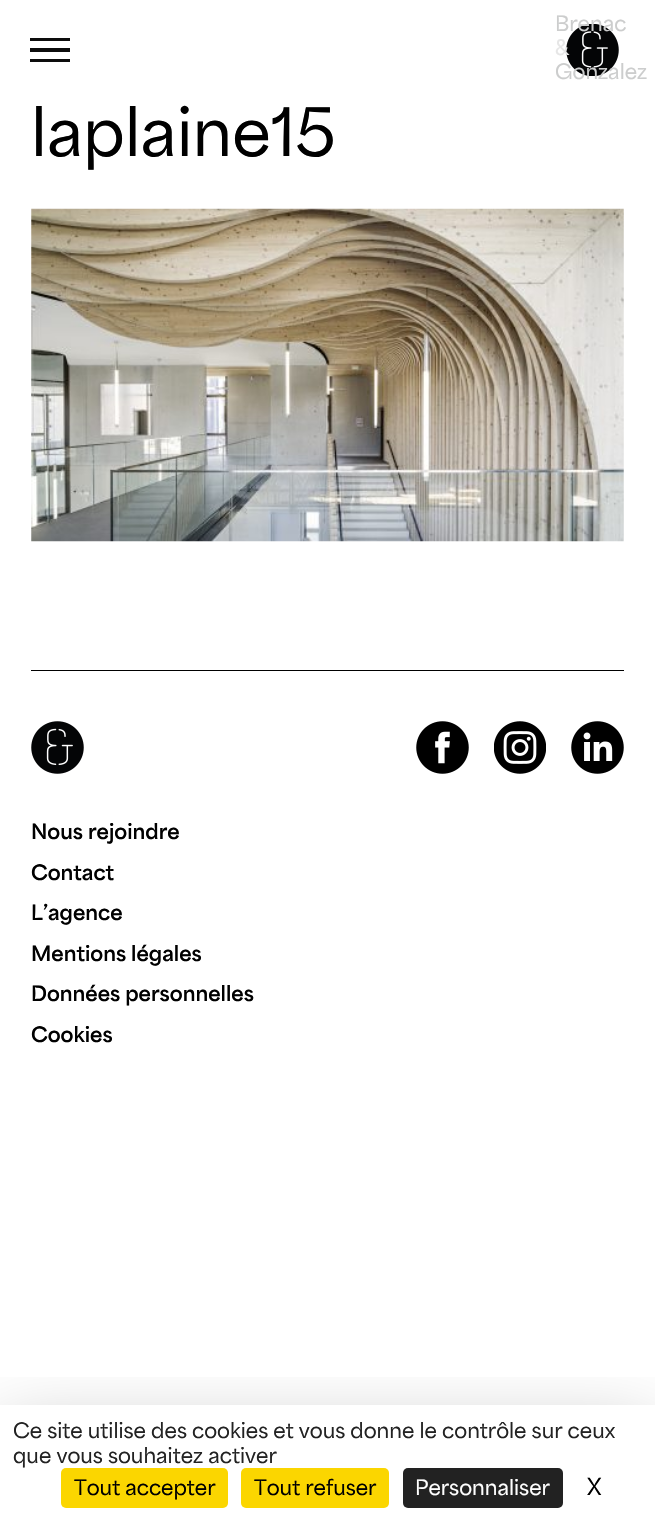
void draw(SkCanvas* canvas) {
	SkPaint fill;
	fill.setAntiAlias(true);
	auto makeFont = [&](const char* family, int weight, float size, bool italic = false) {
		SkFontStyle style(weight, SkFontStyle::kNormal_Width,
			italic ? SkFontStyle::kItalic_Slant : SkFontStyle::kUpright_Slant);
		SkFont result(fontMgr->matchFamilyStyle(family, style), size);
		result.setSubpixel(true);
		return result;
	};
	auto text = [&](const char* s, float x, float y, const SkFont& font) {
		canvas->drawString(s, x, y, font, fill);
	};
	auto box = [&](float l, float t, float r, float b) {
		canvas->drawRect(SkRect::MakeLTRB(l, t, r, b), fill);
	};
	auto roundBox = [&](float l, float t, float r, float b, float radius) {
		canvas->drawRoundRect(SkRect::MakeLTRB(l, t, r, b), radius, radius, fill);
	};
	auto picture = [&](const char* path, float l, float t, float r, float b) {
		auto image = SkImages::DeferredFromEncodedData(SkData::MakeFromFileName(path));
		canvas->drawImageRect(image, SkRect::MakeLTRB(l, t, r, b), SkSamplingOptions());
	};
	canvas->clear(0xFFFFFFFF);
	fill.setColor(0xFF0D0D0D);
	box(30, 38, 70, 41);
	box(30, 48, 70, 52);
	box(30, 59, 70, 62);
	picture("image0.png", 566, 24, 619, 76);
	picture("image1.png", 31, 208, 624, 542);
	fill.setColor(0xFF000000);
	box(31, 670, 624, 671);
	picture("image2.png", 31, 721, 84, 774);
	picture("image3.png", 416, 721, 469, 774);
	picture("image4.png", 494, 721, 546, 774);
	picture("image5.png", 571, 721, 624, 774);
	canvas->save();
	canvas->clipRect(SkRect::MakeLTRB(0, 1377, 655, 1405));
	fill.setColor(0x40000000);
	fill.setMaskFilter(SkMaskFilter::MakeBlur(kNormal_SkBlurStyle, 37.5f));
	canvas->drawRect(SkRect::MakeLTRB(0, 1430, 655, 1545), fill);
	fill.setMaskFilter(nullptr);
	canvas->restore();
	fill.setColor(0xFFFBD600);
	roundBox(61, 1468, 228, 1508, 5);
	roundBox(241, 1468, 389, 1508, 5);
	fill.setColor(0xFF222222);
	roundBox(403, 1468, 563, 1508, 5);
	auto font1 = makeFont("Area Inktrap", 600, 20);
	fill.setColor(0xFFCCCDCD);
	text("Brenac", 555, 31, font1);
	fill.setColor(0xFFE6E6E6);
	text("&", 555, 55, font1);
	fill.setColor(0xFFCCCDCD);
	text("Gonzalez", 555, 79, font1);
	auto font2 = makeFont("Area Inktrap", 600, 62.5f);
	fill.setColor(0xFF000000);
	text("laplaine15", 31, 156, font2);
	auto font3 = makeFont("Area Inktrap", 800, 20);
	text("Nous rejoindre", 31, 839, font3);
	text("Contact", 31, 880, font3);
	text("L’agence", 31, 920, font3);
	text("Mentions légales", 31, 961, font3);
	text("Données personnelles", 31, 1001, font3);
	text("Cookies", 31, 1042, font3);
	fill.setColor(0xFF222222);
	text("Ce site utilise des cookies et vous donne le contrôle sur ceux", 13, 1438, font1);
	text("que vous souhaitez activer", 13, 1463, font1);
	fill.setColor(0xFF000000);
	text("Tout accepter", 74, 1495, font1);
	text("Tout refuser", 254, 1495, font1);
	fill.setColor(0xFFFFFFFF);
	text("Personnaliser", 415, 1495, font1);
	auto font4 = makeFont("Area Inktrap", 600, 22);
	fill.setColor(0xFF000000);
	text("X", 587, 1495, font4);
}
